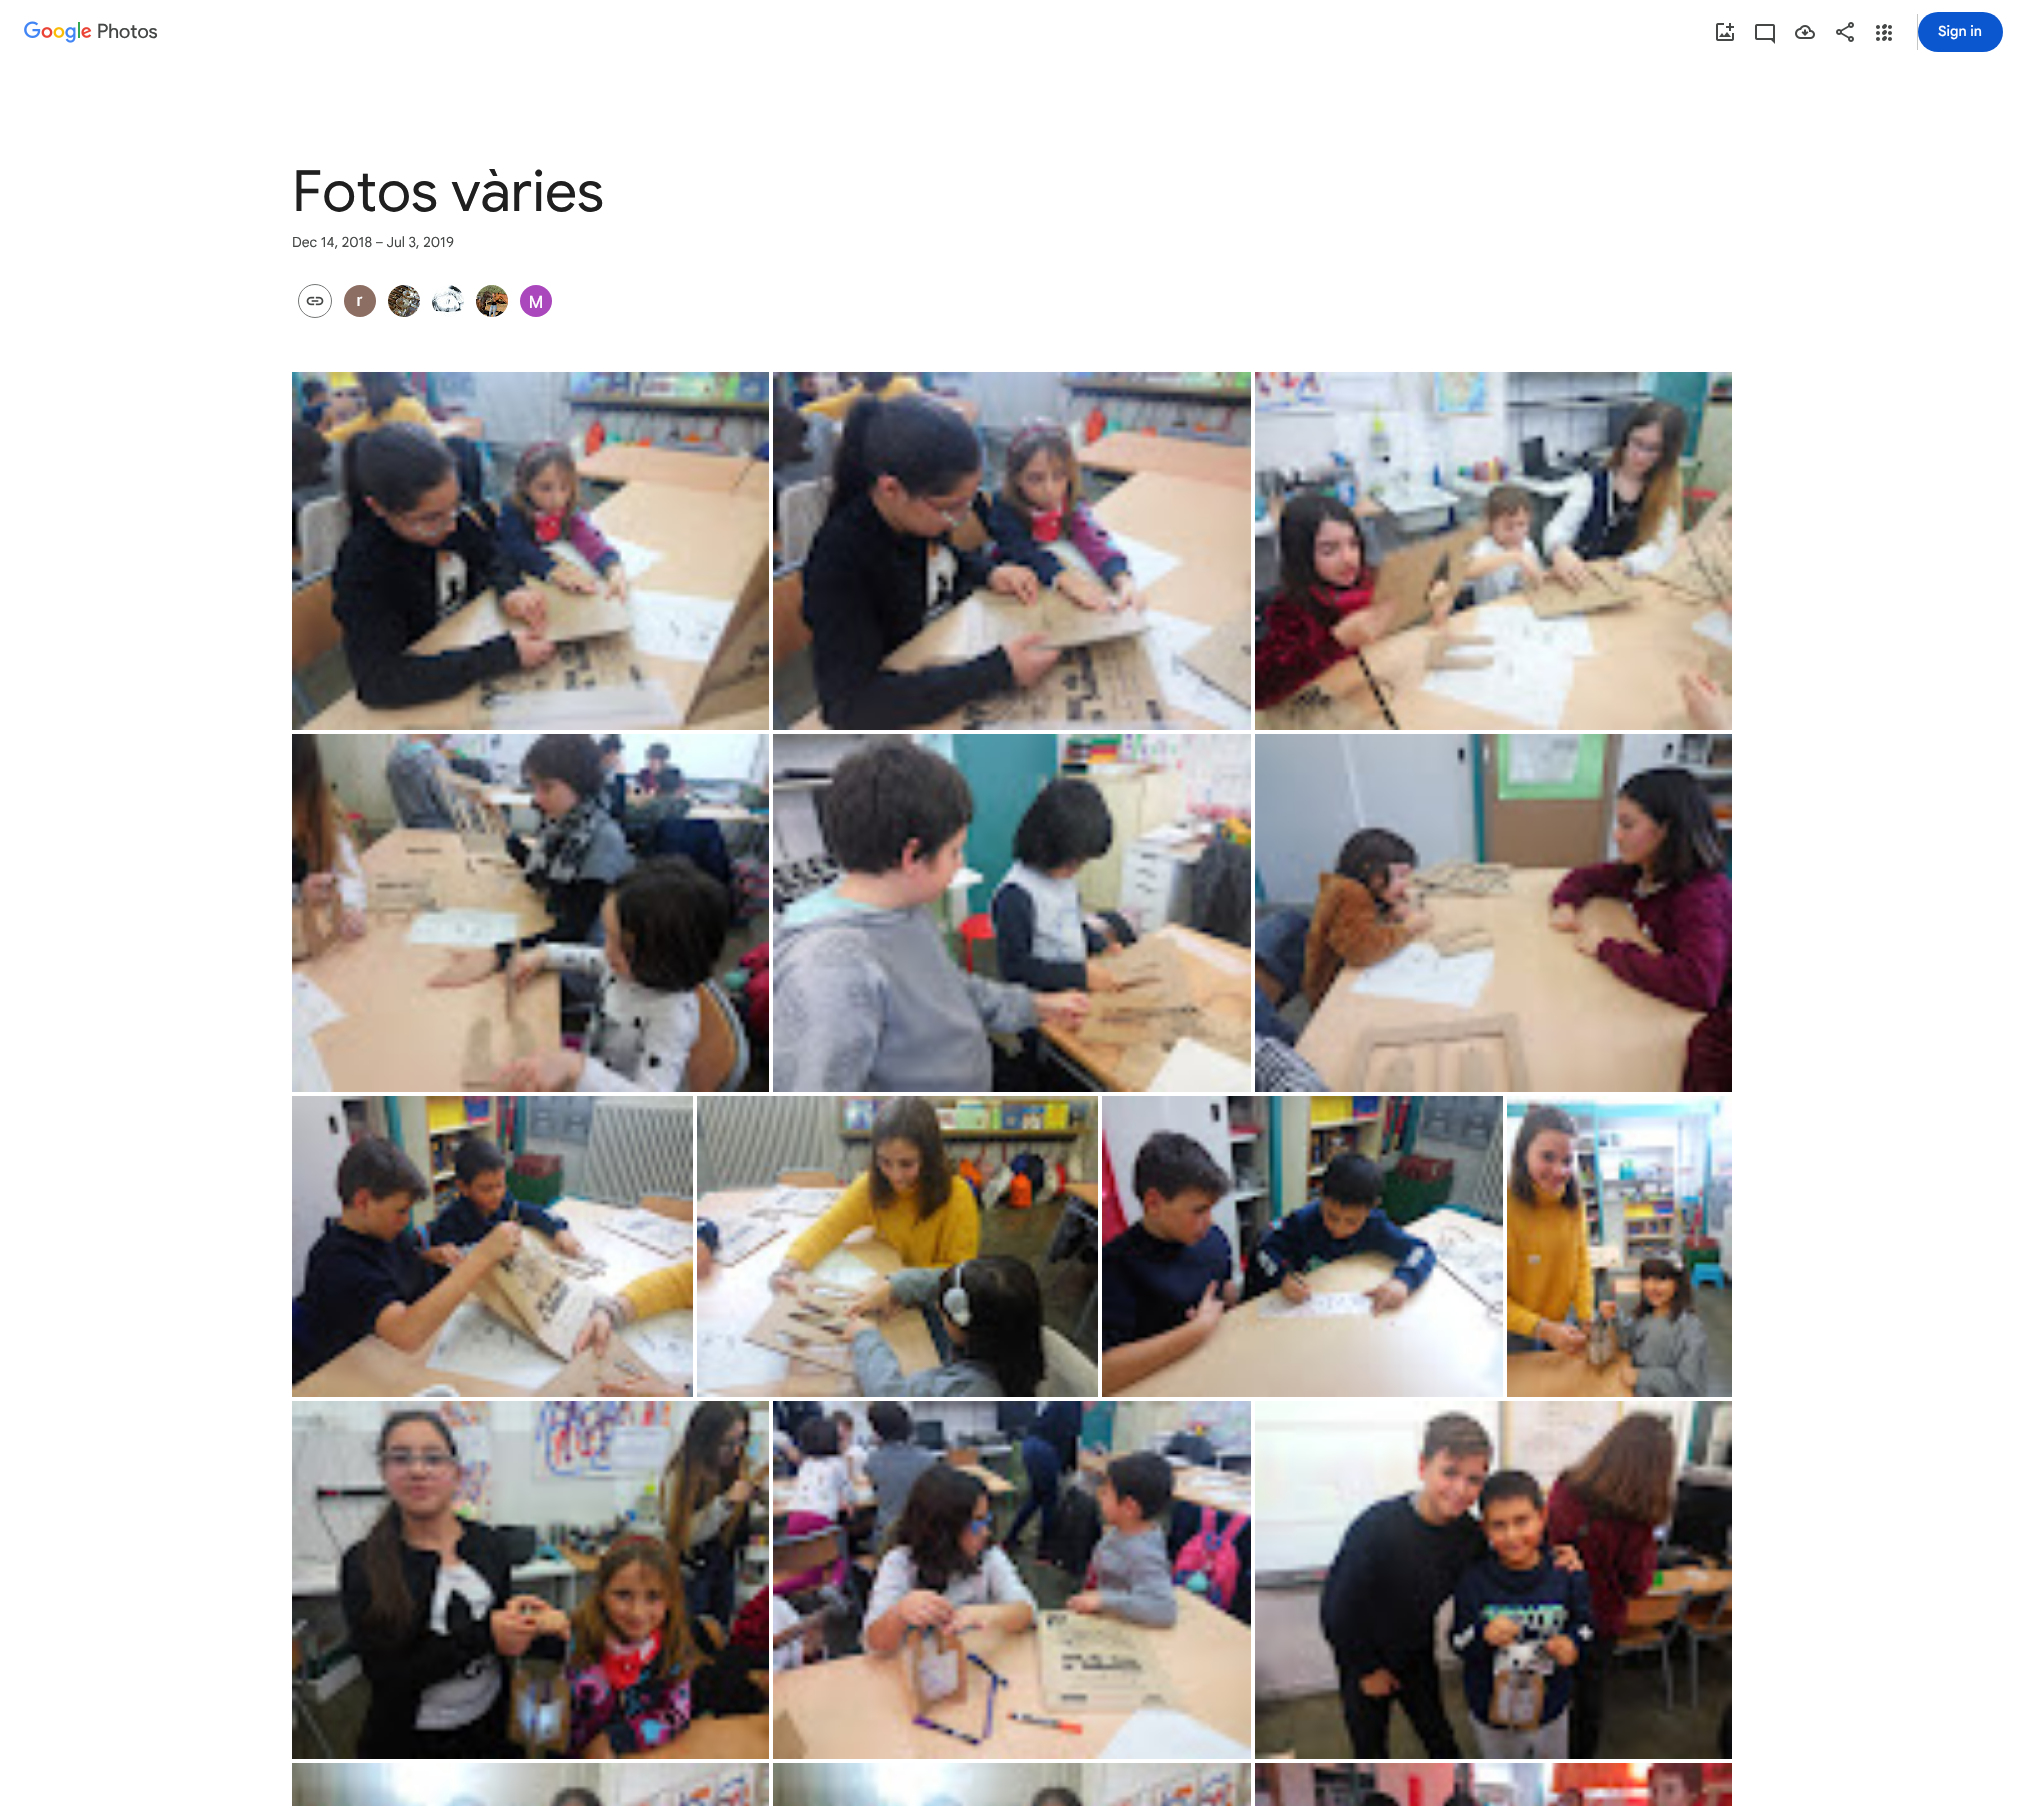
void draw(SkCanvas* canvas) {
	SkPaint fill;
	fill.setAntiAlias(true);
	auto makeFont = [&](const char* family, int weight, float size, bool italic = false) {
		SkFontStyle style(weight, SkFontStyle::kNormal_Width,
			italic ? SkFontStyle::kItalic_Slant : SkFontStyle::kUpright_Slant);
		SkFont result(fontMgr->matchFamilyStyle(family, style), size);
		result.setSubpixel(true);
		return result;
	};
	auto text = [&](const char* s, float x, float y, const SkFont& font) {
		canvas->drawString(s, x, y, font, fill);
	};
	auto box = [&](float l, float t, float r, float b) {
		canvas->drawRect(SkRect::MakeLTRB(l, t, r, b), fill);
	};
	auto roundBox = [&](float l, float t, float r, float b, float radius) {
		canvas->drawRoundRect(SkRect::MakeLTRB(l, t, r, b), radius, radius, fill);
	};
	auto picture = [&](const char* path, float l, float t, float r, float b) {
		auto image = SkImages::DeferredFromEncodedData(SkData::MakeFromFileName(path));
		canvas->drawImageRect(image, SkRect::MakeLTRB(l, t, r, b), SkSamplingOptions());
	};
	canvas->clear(0xFFFFFFFF);
	picture("image0.png", 24, 21, 92, 43);
	picture("image1.png", 1716, 23, 1734, 41);
	picture("image2.png", 1755, 24, 1775, 44);
	picture("image3.png", 1795, 25, 1815, 39);
	picture("image4.png", 1836, 22, 1854, 42);
	picture("image5.png", 1883, 24, 1887, 40);
	fill.setColor(0xFFC4C7C5);
	box(1917, 14, 1918, 50);
	fill.setStyle(SkPaint::kStroke_Style);
	fill.setStrokeWidth(1);
	fill.setColor(0xFF747775);
	canvas->drawCircle(315, 301, 16.5f, fill);
	picture("image6.png", 306, 296, 324, 306);
	picture("image7.png", 344, 285, 376, 317);
	picture("image8.png", 388, 285, 420, 317);
	picture("image9.png", 432, 285, 464, 317);
	picture("image10.png", 476, 285, 508, 317);
	picture("image11.png", 520, 285, 552, 317);
	picture("image12.png", 292, 372, 769, 730);
	picture("image13.png", 773, 372, 1251, 730);
	picture("image14.png", 1255, 372, 1732, 730);
	picture("image15.png", 292, 734, 769, 1092);
	picture("image16.png", 773, 734, 1251, 1092);
	picture("image17.png", 1255, 734, 1732, 1092);
	picture("image18.png", 292, 1096, 693, 1397);
	picture("image19.png", 697, 1096, 1098, 1397);
	picture("image20.png", 1102, 1096, 1503, 1397);
	picture("image21.png", 1507, 1096, 1732, 1397);
	picture("image22.png", 292, 1401, 769, 1759);
	picture("image23.png", 773, 1401, 1251, 1759);
	picture("image24.png", 1255, 1401, 1732, 1759);
	picture("image25.png", 292, 1763, 769, 1806);
	picture("image26.png", 773, 1763, 1251, 1806);
	picture("image27.png", 1255, 1763, 1732, 1806);
	picture("image28.png", 1876, 25, 1892, 41);
	fill.setStyle(SkPaint::kFill_Style);
	fill.setColor(0xFF0B57D0);
	roundBox(1918, 12, 2003, 52, 20);
	auto font1 = makeFont("Product Sans", 400, 20);
	fill.setColor(0xFF444746);
	text("Photos", 97, 38, font1);
	auto font2 = makeFont("Google Sans", 400, 57);
	fill.setColor(0xFF1F1F1F);
	text("Fotos vàries", 292, 211, font2);
	auto font3 = makeFont("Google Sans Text", 400, 14);
	fill.setColor(0xFF444746);
	text("Dec 14, 2018 – Jul 3, 2019", 292, 247, font3);
	auto font4 = makeFont("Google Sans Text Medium", 500, 14);
	fill.setColor(0xFFFFFFFF);
	text("Sign in", 1938, 36, font4);
}
